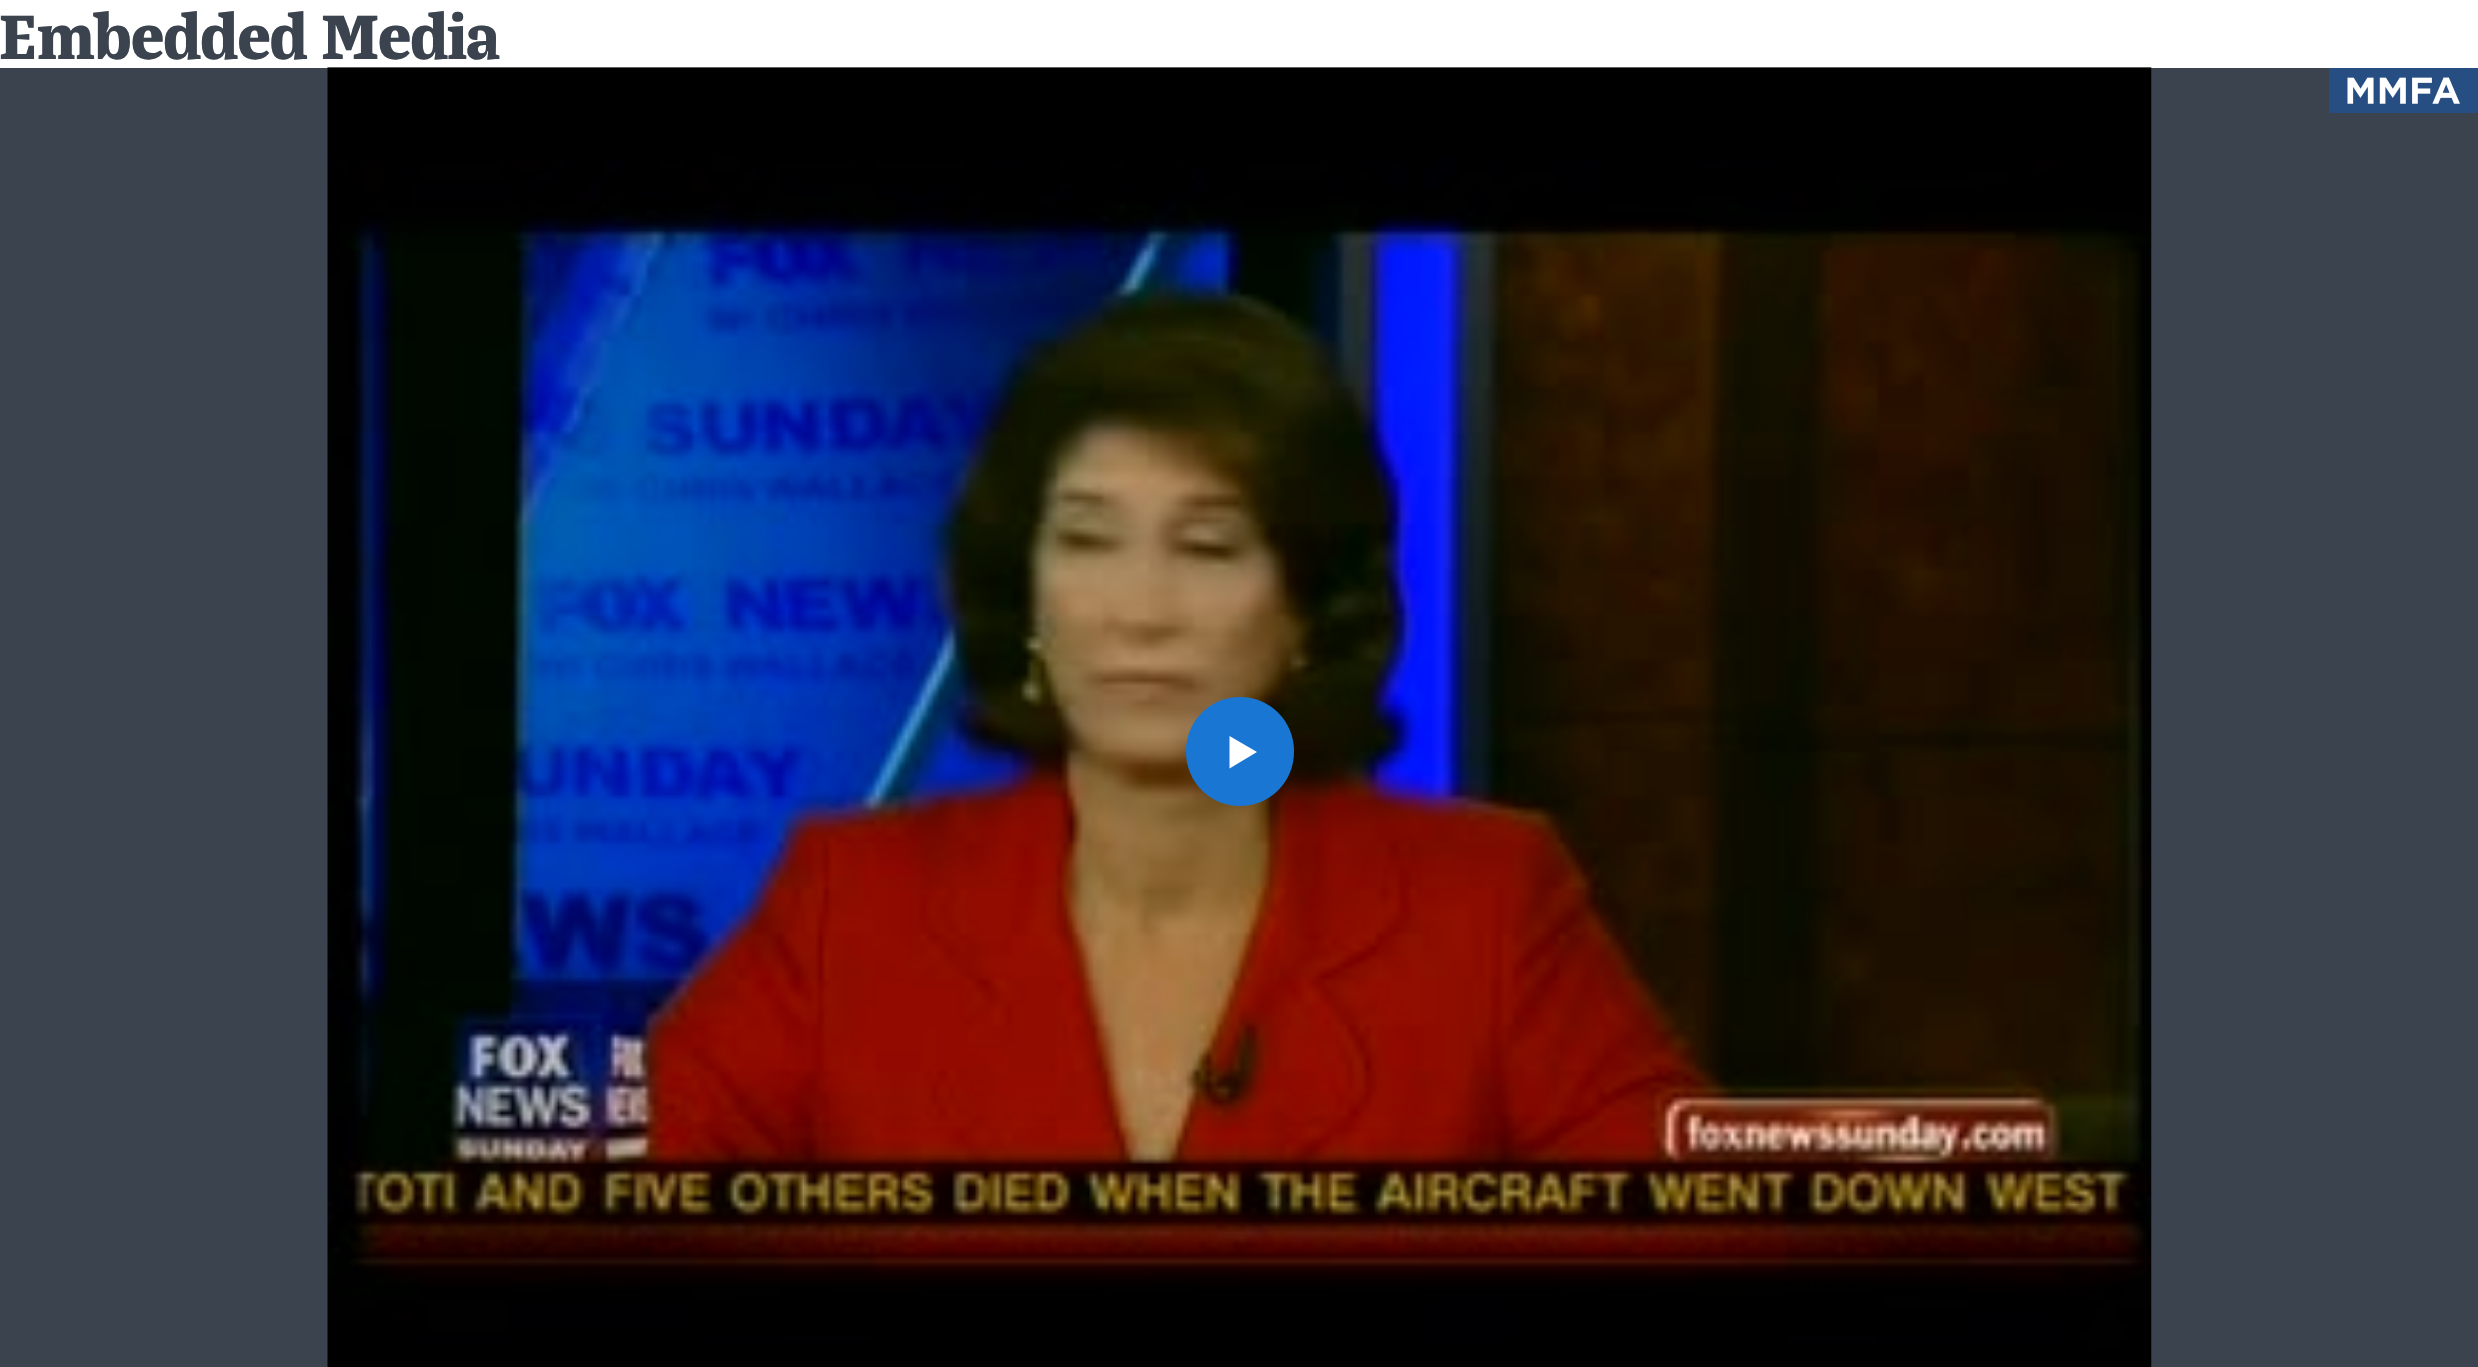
void draw(SkCanvas* canvas) {
	SkPaint fill;
	fill.setAntiAlias(true);
	auto makeFont = [&](const char* family, int weight, float size, bool italic = false) {
		SkFontStyle style(weight, SkFontStyle::kNormal_Width,
			italic ? SkFontStyle::kItalic_Slant : SkFontStyle::kUpright_Slant);
		SkFont result(fontMgr->matchFamilyStyle(family, style), size);
		result.setSubpixel(true);
		return result;
	};
	auto text = [&](const char* s, float x, float y, const SkFont& font) {
		canvas->drawString(s, x, y, font, fill);
	};
	auto box = [&](float l, float t, float r, float b) {
		canvas->drawRect(SkRect::MakeLTRB(l, t, r, b), fill);
	};
	auto roundBox = [&](float l, float t, float r, float b, float radius) {
		canvas->drawRoundRect(SkRect::MakeLTRB(l, t, r, b), radius, radius, fill);
	};
	auto picture = [&](const char* path, float l, float t, float r, float b) {
		auto image = SkImages::DeferredFromEncodedData(SkData::MakeFromFileName(path));
		canvas->drawImageRect(image, SkRect::MakeLTRB(l, t, r, b), SkSamplingOptions());
	};
	canvas->clear(0xFFFFFFFF);
	fill.setColor(0xFF3A434E);
	box(0, 68, 2478, 1367);
	picture("image2.png", 327, 67, 2152, 68);
	picture("image0.png", 327, 67, 2152, 1367);
	picture("image1.png", 2329, 68, 2478, 113);
	fill.setColor(0xFF1976D2);
	roundBox(1186, 697, 1294, 806, 54);
	fill.setColor(0xFFFFFFFF);
	canvas->drawPath(SkPathBuilder(SkPathFillType::kEvenOdd).moveTo(1229.5f, 736).lineTo(1257, 752).lineTo(1229.5f, 768.5f).close().detach(), fill);
	auto font1 = makeFont("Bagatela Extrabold", 800, 67.5f);
	fill.setColor(0xFF3A434E);
	text("Embedded Media", 0, 59, font1);
}
